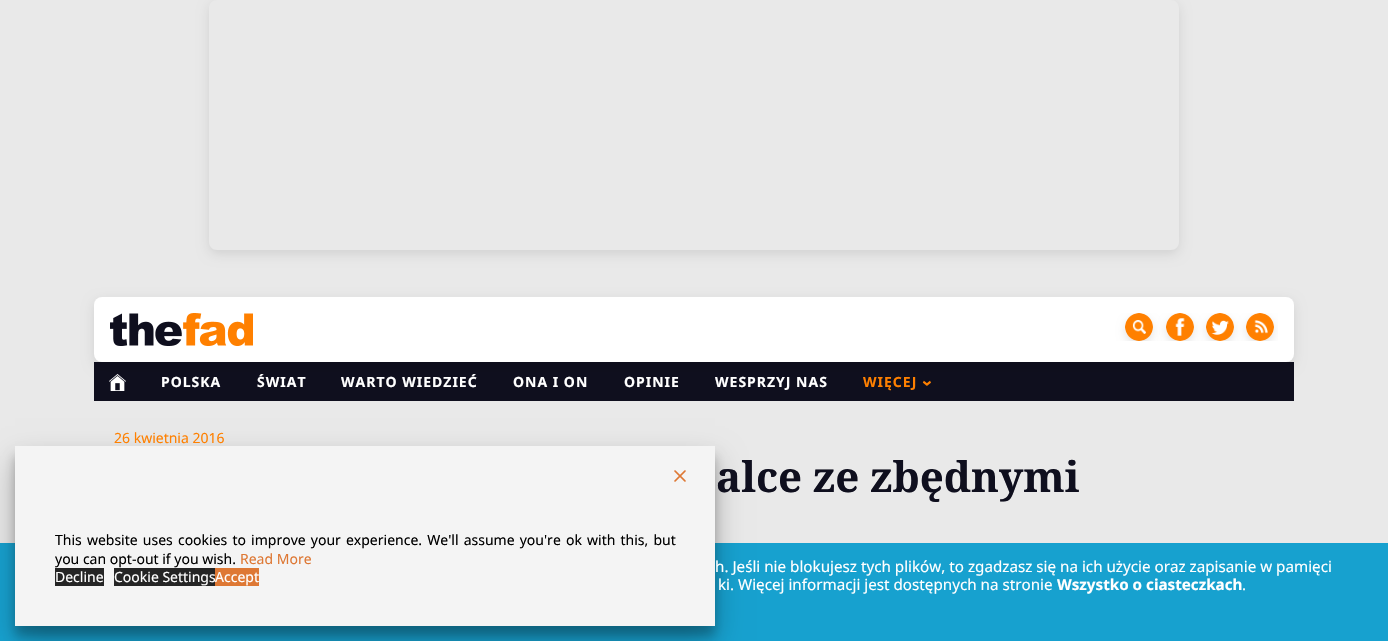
void draw(SkCanvas* canvas) {
	SkPaint fill;
	fill.setAntiAlias(true);
	auto makeFont = [&](const char* family, int weight, float size, bool italic = false) {
		SkFontStyle style(weight, SkFontStyle::kNormal_Width,
			italic ? SkFontStyle::kItalic_Slant : SkFontStyle::kUpright_Slant);
		SkFont result(fontMgr->matchFamilyStyle(family, style), size);
		result.setSubpixel(true);
		return result;
	};
	auto text = [&](const char* s, float x, float y, const SkFont& font) {
		canvas->drawString(s, x, y, font, fill);
	};
	auto spacedText = [&](const char* s, float x, float y, const SkFont& font, const SkPaint& ink, float letter, float word) {
		std::vector<SkGlyphID> glyphs(font.countText(s, strlen(s), SkTextEncoding::kUTF8));
		std::vector<float> xs(glyphs.size());
		font.textToGlyphs(s, strlen(s), SkTextEncoding::kUTF8, glyphs);
		font.getXPos(glyphs, xs, x);
		float extra = 0;
		for (size_t i = 0; i < glyphs.size(); i++) {
			xs[i] += extra;
			extra += letter + word * (glyphs[i] == font.unicharToGlyph(' '));
		}
		canvas->drawTextBlob(SkTextBlob::MakeFromPosHGlyphs(glyphs, xs, y, font), 0, 0, ink);
	};
	auto box = [&](float l, float t, float r, float b) {
		canvas->drawRect(SkRect::MakeLTRB(l, t, r, b), fill);
	};
	auto roundBox = [&](float l, float t, float r, float b, float radius) {
		canvas->drawRoundRect(SkRect::MakeLTRB(l, t, r, b), radius, radius, fill);
	};
	auto picture = [&](const char* path, float l, float t, float r, float b) {
		auto image = SkImages::DeferredFromEncodedData(SkData::MakeFromFileName(path));
		canvas->drawImageRect(image, SkRect::MakeLTRB(l, t, r, b), SkSamplingOptions());
	};
	canvas->clear(0xFFE9E9E9);
	canvas->save();
	canvas->clipPath(SkPathBuilder(SkPathFillType::kEvenOdd).moveTo(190, 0).lineTo(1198, 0).lineTo(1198, 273).lineTo(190, 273).close().moveTo(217, 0).lineTo(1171, 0).cubicTo(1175.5f, 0, 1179, 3.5f, 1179, 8).lineTo(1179, 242).cubicTo(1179, 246.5f, 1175.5f, 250, 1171, 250).lineTo(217, 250).cubicTo(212.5f, 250, 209, 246.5f, 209, 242).lineTo(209, 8).cubicTo(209, 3.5f, 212.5f, 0, 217, 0).close().detach(), true);
	fill.setColor(0x1A000000);
	fill.setMaskFilter(SkMaskFilter::MakeBlur(kNormal_SkBlurStyle, 6));
	canvas->drawRoundRect(SkRect::MakeLTRB(209, 4, 1179, 254), 8, 8, fill);
	fill.setMaskFilter(nullptr);
	canvas->restore();
	fill.setColor(0xFF0F0F1E);
	box(94, 362, 1294, 401);
	fill.setColor(0x1A000000);
	fill.setMaskFilter(SkMaskFilter::MakeBlur(kNormal_SkBlurStyle, 6));
	canvas->drawRoundRect(SkRect::MakeLTRB(94, 301, 1294, 366), 8, 8, fill);
	fill.setMaskFilter(nullptr);
	fill.setColor(0xFFFFFFFF);
	roundBox(94, 297, 1294, 362, 8);
	picture("image0.png", 110, 313, 253, 346);
	canvas->save();
	canvas->clipRect(SkRect::MakeLTRB(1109, 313, 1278, 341));
	fill.setColor(0x1A000000);
	fill.setMaskFilter(SkMaskFilter::MakeBlur(kNormal_SkBlurStyle, 4));
	canvas->drawRoundRect(SkRect::MakeLTRB(1125, 317, 1153, 345), 14, 14, fill);
	fill.setMaskFilter(nullptr);
	canvas->restore();
	picture("image1.png", 1125, 313, 1153, 341);
	canvas->save();
	canvas->clipRect(SkRect::MakeLTRB(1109, 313, 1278, 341));
	canvas->clipPath(SkPathBuilder(SkPathFillType::kEvenOdd).moveTo(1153, 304).lineTo(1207, 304).lineTo(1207, 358).lineTo(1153, 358).close().moveTo(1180, 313).cubicTo(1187.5f, 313, 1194, 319.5f, 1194, 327).cubicTo(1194, 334.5f, 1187.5f, 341, 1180, 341).cubicTo(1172.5f, 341, 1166, 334.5f, 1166, 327).cubicTo(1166, 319.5f, 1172.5f, 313, 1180, 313).close().detach(), true);
	fill.setMaskFilter(SkMaskFilter::MakeBlur(kNormal_SkBlurStyle, 4));
	canvas->drawRoundRect(SkRect::MakeLTRB(1166, 317, 1194, 345), 14, 14, fill);
	fill.setMaskFilter(nullptr);
	canvas->restore();
	picture("image2.png", 1166, 313, 1194, 341);
	canvas->save();
	canvas->clipRect(SkRect::MakeLTRB(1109, 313, 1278, 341));
	canvas->clipPath(SkPathBuilder(SkPathFillType::kEvenOdd).moveTo(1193, 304).lineTo(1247, 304).lineTo(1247, 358).lineTo(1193, 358).close().moveTo(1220, 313).cubicTo(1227.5f, 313, 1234, 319.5f, 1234, 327).cubicTo(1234, 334.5f, 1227.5f, 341, 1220, 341).cubicTo(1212.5f, 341, 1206, 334.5f, 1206, 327).cubicTo(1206, 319.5f, 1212.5f, 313, 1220, 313).close().detach(), true);
	fill.setMaskFilter(SkMaskFilter::MakeBlur(kNormal_SkBlurStyle, 4));
	canvas->drawRoundRect(SkRect::MakeLTRB(1206, 317, 1234, 345), 14, 14, fill);
	fill.setMaskFilter(nullptr);
	canvas->restore();
	picture("image3.png", 1206, 313, 1234, 341);
	canvas->save();
	canvas->clipRect(SkRect::MakeLTRB(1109, 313, 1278, 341));
	canvas->clipPath(SkPathBuilder(SkPathFillType::kEvenOdd).moveTo(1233, 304).lineTo(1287, 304).lineTo(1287, 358).lineTo(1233, 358).close().moveTo(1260, 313).cubicTo(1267.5f, 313, 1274, 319.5f, 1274, 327).cubicTo(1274, 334.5f, 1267.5f, 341, 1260, 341).cubicTo(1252.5f, 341, 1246, 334.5f, 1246, 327).cubicTo(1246, 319.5f, 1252.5f, 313, 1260, 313).close().detach(), true);
	fill.setMaskFilter(SkMaskFilter::MakeBlur(kNormal_SkBlurStyle, 4));
	canvas->drawRoundRect(SkRect::MakeLTRB(1246, 317, 1274, 345), 14, 14, fill);
	fill.setMaskFilter(nullptr);
	canvas->restore();
	picture("image4.png", 1246, 313, 1274, 341);
	picture("image5.png", 109, 374, 126, 391);
	picture("image6.png", 922, 380, 931, 386);
	fill.setColor(0xE60099CC);
	box(0, 543, 1388, 641);
	fill.setColor(0x38000000);
	fill.setMaskFilter(SkMaskFilter::MakeBlur(kNormal_SkBlurStyle, 5));
	canvas->drawRect(SkRect::MakeLTRB(15, 456, 715, 636), fill);
	fill.setMaskFilter(nullptr);
	fill.setColor(0x40000000);
	fill.setMaskFilter(SkMaskFilter::MakeBlur(kNormal_SkBlurStyle, 14));
	canvas->drawRect(SkRect::MakeLTRB(15, 460, 715, 640), fill);
	fill.setMaskFilter(nullptr);
	fill.setColor(0xFFF4F4F4);
	box(15, 446, 715, 626);
	picture("image7.png", 674, 470, 686, 482);
	fill.setColor(0xFF252525);
	box(55, 568, 104, 586);
	box(114, 568, 215, 586);
	fill.setColor(0xFFDE7834);
	box(215, 568, 259, 586);
	auto font1 = makeFont("Noto Sans", 700, 14);
	fill.setColor(0xFFFFFFFF);
	spacedText("POLSKA", 161, 387, font1, fill, 1, 0);
	spacedText("ŚWIAT", 257, 387, font1, fill, 1, 0);
	spacedText("WARTO WIEDZIEĆ", 341, 387, font1, fill, 1, 0);
	spacedText("ONA I ON", 513, 387, font1, fill, 1, 0);
	spacedText("OPINIE", 624, 387, font1, fill, 1, 0);
	spacedText("WESPRZYJ NAS", 715, 387, font1, fill, 1, 0);
	fill.setColor(0xFFFF8000);
	spacedText("WIĘCEJ", 863, 387, font1, fill, 1, 0);
	auto font2 = makeFont("Noto Sans", 400, 14);
	text("26 kwietnia 2016", 114, 443, font2);
	auto font3 = makeFont("Noto Serif", 700, 42);
	fill.setColor(0xFF0F0F1E);
	text("alce ze zbędnymi", 716, 492, font3);
	fill.setColor(0xFF000000);
	spacedText("This website uses cookies to improve your experience. We'll assume you're ok with this, but", 55, 545, font2, fill, 0, 1.5f);
	text("you can opt-out if you wish.", 55, 564, font2);
	fill.setColor(0xFFDE7834);
	text("Read More", 240, 564, font2);
	fill.setColor(0xFFFFFFFF);
	text("Decline", 55, 582, font2);
	text("Cookie Settings", 114, 582, font2);
	text("Accept", 215, 582, font2);
	auto font4 = makeFont("Noto Sans", 400, 15.2f);
	text("h. Jeśli nie blokujesz tych plików, to zgadzasz się na ich użycie oraz zapisanie w pamięci", 715, 572, font4);
	text("ki. Więcej informacji jest dostępnych na stronie", 718, 590, font4);
	auto font5 = makeFont("Noto Sans", 700, 15.2f);
	text("Wszystko o ciasteczkach", 1057, 590, font5);
	text(".", 1242, 590, font4);
}
